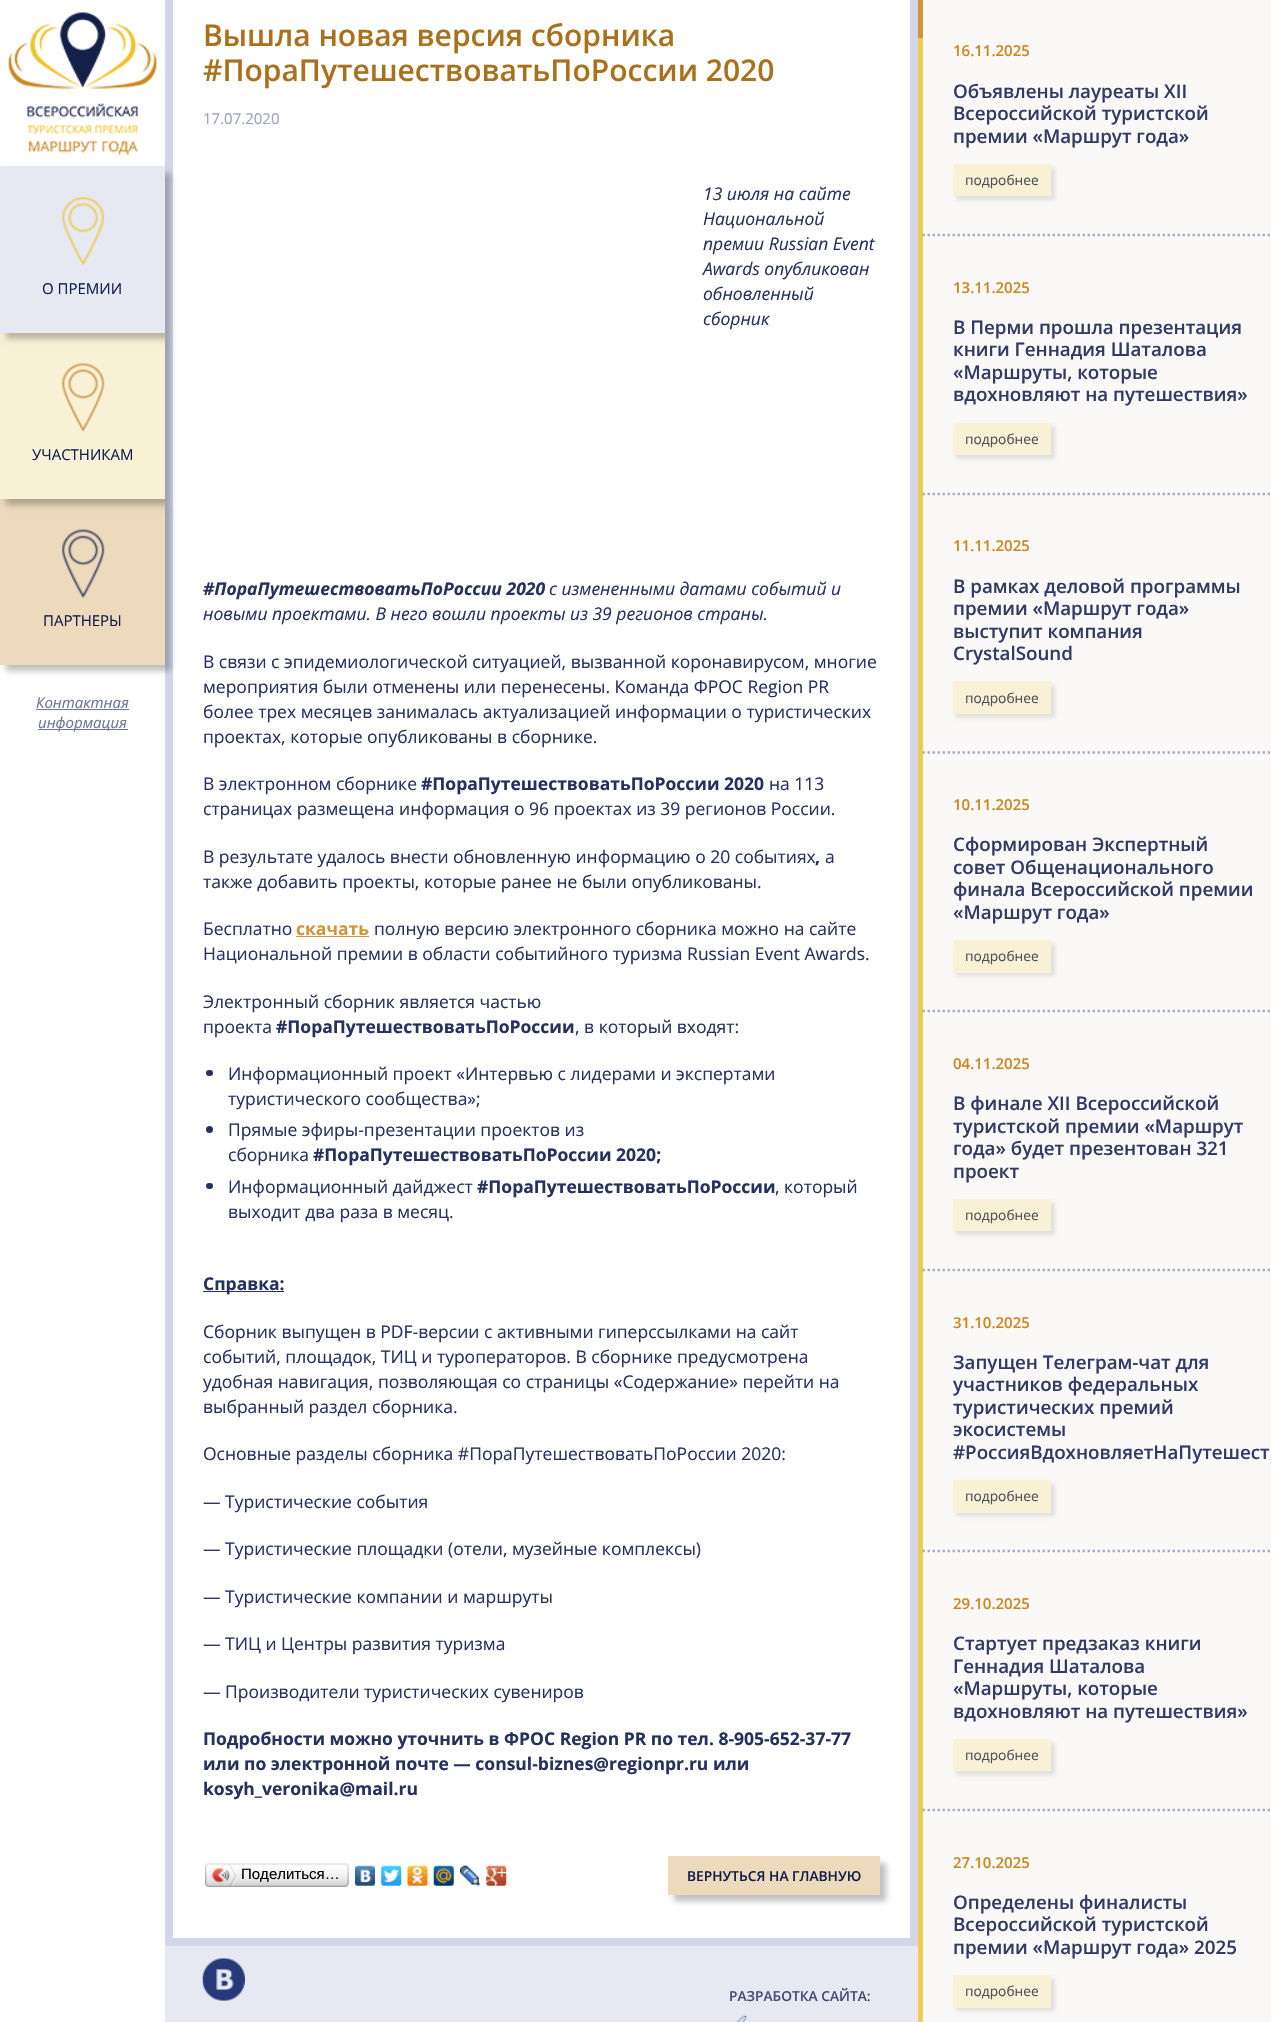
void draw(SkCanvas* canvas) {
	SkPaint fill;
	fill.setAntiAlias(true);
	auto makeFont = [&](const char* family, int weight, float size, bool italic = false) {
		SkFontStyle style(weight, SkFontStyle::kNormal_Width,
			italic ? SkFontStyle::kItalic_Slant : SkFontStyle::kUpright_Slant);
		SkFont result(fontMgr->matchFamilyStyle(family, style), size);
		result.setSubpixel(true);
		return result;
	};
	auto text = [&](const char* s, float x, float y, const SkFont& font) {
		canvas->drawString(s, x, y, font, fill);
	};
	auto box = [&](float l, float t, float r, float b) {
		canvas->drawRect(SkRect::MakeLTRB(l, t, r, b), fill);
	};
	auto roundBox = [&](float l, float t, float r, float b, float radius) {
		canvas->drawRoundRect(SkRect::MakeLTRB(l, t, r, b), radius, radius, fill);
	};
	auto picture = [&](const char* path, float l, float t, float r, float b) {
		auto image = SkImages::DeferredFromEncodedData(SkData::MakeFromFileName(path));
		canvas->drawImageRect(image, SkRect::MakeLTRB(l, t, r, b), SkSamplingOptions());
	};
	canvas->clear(0xFFE6E9F2);
	fill.setColor(0xFFFFFFFF);
	box(0, 0, 165, 2022);
	picture("image0.png", 8, 12, 157, 156);
	canvas->drawRect(SkRect::MakeLTRB(169, -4, 914, 1942), fill);
	fill.setStyle(SkPaint::kStroke_Style);
	fill.setStrokeWidth(8);
	fill.setColor(0xFFD2D6E8);
	canvas->drawRect(SkRect::MakeLTRB(169, -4, 914, 1942), fill);
	fill.setStyle(SkPaint::kFill_Style);
	fill.setColor(0x40000000);
	fill.setMaskFilter(SkMaskFilter::MakeBlur(kNormal_SkBlurStyle, 3));
	canvas->drawRect(SkRect::MakeLTRB(6, 505, 171, 671), fill);
	fill.setMaskFilter(nullptr);
	fill.setColor(0xFFEDD9BC);
	box(0, 499, 165, 665);
	fill.setColor(0x40000000);
	fill.setMaskFilter(SkMaskFilter::MakeBlur(kNormal_SkBlurStyle, 3));
	canvas->drawRect(SkRect::MakeLTRB(6, 339, 171, 505), fill);
	fill.setMaskFilter(nullptr);
	fill.setColor(0xFFF9F1D6);
	box(0, 333, 165, 499);
	fill.setColor(0x40000000);
	fill.setMaskFilter(SkMaskFilter::MakeBlur(kNormal_SkBlurStyle, 3));
	canvas->drawRect(SkRect::MakeLTRB(6, 173, 171, 339), fill);
	fill.setMaskFilter(nullptr);
	fill.setColor(0xFFE6E9F2);
	box(0, 166, 165, 333);
	picture("image1.png", 62, 197, 105, 266);
	picture("image2.png", 62, 363, 105, 432);
	picture("image3.png", 62, 529, 105, 598);
	fill.setColor(0xFF6B7594);
	box(36, 709, 129, 710);
	box(38, 729, 128, 730);
	fill.setColor(0xFFD0943B);
	box(296, 936, 369, 937);
	fill.setColor(0xFF26315F);
	roundBox(206, 1070, 213, 1076, 3);
	canvas->drawCircle(209.5f, 1129.5f, 3.5f, fill);
	roundBox(206, 1183, 213, 1189, 3);
	box(203, 1291, 284, 1292);
	picture("image4.png", 208, 1863, 345, 1887);
	picture("image5.png", 205, 1863, 209, 1887);
	picture("image6.png", 212, 1864, 238, 1886);
	picture("image7.png", 345, 1863, 349, 1887);
	picture("image8.png", 355, 1865, 375, 1886);
	picture("image9.png", 381, 1865, 402, 1886);
	picture("image10.png", 407, 1865, 428, 1886);
	picture("image11.png", 433, 1865, 454, 1886);
	picture("image12.png", 460, 1865, 480, 1886);
	picture("image13.png", 486, 1865, 507, 1886);
	fill.setColor(0x40000000);
	fill.setMaskFilter(SkMaskFilter::MakeBlur(kNormal_SkBlurStyle, 3));
	canvas->drawRect(SkRect::MakeLTRB(674, 1863, 886, 1901), fill);
	fill.setMaskFilter(nullptr);
	fill.setColor(0xFFEDD9BC);
	box(668, 1856, 880, 1895);
	picture("image14.png", 202, 1958, 245, 2001);
	picture("image15.png", 736, 2015, 747, 2022);
	fill.setColor(0xFFFBF9F7);
	box(923, 0, 1271, 2022);
	fill.setColor(0xFFD0943B);
	box(918, 0, 923, 38);
	fill.setColor(0xFFF0CC4E);
	box(918, 38, 923, 2022);
	fill.setStyle(SkPaint::kStroke_Style);
	fill.setStrokeWidth(2.5f);
	fill.setColor(0xFFA9AFC6);
	fill.setPathEffect(SkDashPathEffect::Make({{2.5f, 2.5f}}, 0));
	canvas->drawPath(SkPathBuilder().moveTo(922.5f, 235).lineTo(1271, 235).detach(), fill);
	fill.setPathEffect(nullptr);
	fill.setStyle(SkPaint::kFill_Style);
	fill.setColor(0x1A000000);
	fill.setMaskFilter(SkMaskFilter::MakeBlur(kNormal_SkBlurStyle, 2));
	canvas->drawRect(SkRect::MakeLTRB(956, 168, 1055, 200), fill);
	fill.setMaskFilter(nullptr);
	fill.setColor(0xFFF9F1D6);
	box(953, 164, 1051, 196);
	fill.setStyle(SkPaint::kStroke_Style);
	fill.setColor(0xFFA9AFC6);
	fill.setPathEffect(SkDashPathEffect::Make({{2.5f, 2.5f}}, 0));
	canvas->drawPath(SkPathBuilder().moveTo(922.5f, 494).lineTo(1271, 494).detach(), fill);
	fill.setPathEffect(nullptr);
	fill.setStyle(SkPaint::kFill_Style);
	fill.setColor(0x1A000000);
	fill.setMaskFilter(SkMaskFilter::MakeBlur(kNormal_SkBlurStyle, 2));
	canvas->drawRect(SkRect::MakeLTRB(956, 426, 1055, 459), fill);
	fill.setMaskFilter(nullptr);
	fill.setColor(0xFFF9F1D6);
	box(953, 423, 1051, 455);
	fill.setStyle(SkPaint::kStroke_Style);
	fill.setColor(0xFFA9AFC6);
	fill.setPathEffect(SkDashPathEffect::Make({{2.5f, 2.5f}}, 0));
	canvas->drawPath(SkPathBuilder().moveTo(922.5f, 752.5f).lineTo(1271, 752.5f).detach(), fill);
	fill.setPathEffect(nullptr);
	fill.setStyle(SkPaint::kFill_Style);
	fill.setColor(0x1A000000);
	fill.setMaskFilter(SkMaskFilter::MakeBlur(kNormal_SkBlurStyle, 2));
	canvas->drawRect(SkRect::MakeLTRB(956, 685, 1055, 718), fill);
	fill.setMaskFilter(nullptr);
	fill.setColor(0xFFF9F1D6);
	box(953, 681, 1051, 714);
	fill.setStyle(SkPaint::kStroke_Style);
	fill.setColor(0xFFA9AFC6);
	fill.setPathEffect(SkDashPathEffect::Make({{2.5f, 2.5f}}, 0));
	canvas->drawPath(SkPathBuilder().moveTo(922.5f, 1011).lineTo(1271, 1011).detach(), fill);
	fill.setPathEffect(nullptr);
	fill.setStyle(SkPaint::kFill_Style);
	fill.setColor(0x1A000000);
	fill.setMaskFilter(SkMaskFilter::MakeBlur(kNormal_SkBlurStyle, 2));
	canvas->drawRect(SkRect::MakeLTRB(956, 944, 1055, 976), fill);
	fill.setMaskFilter(nullptr);
	fill.setColor(0xFFF9F1D6);
	box(953, 940, 1051, 973);
	fill.setStyle(SkPaint::kStroke_Style);
	fill.setColor(0xFFA9AFC6);
	fill.setPathEffect(SkDashPathEffect::Make({{2.5f, 2.5f}}, 0));
	canvas->drawPath(SkPathBuilder().moveTo(922.5f, 1270).lineTo(1271, 1270).detach(), fill);
	fill.setPathEffect(nullptr);
	fill.setStyle(SkPaint::kFill_Style);
	fill.setColor(0x1A000000);
	fill.setMaskFilter(SkMaskFilter::MakeBlur(kNormal_SkBlurStyle, 2));
	canvas->drawRect(SkRect::MakeLTRB(956, 1203, 1055, 1235), fill);
	fill.setMaskFilter(nullptr);
	fill.setColor(0xFFF9F1D6);
	box(953, 1199, 1051, 1231);
	fill.setStyle(SkPaint::kStroke_Style);
	fill.setColor(0xFFA9AFC6);
	fill.setPathEffect(SkDashPathEffect::Make({{2.5f, 2.5f}}, 0));
	canvas->drawPath(SkPathBuilder().moveTo(922.5f, 1551).lineTo(1271, 1551).detach(), fill);
	fill.setPathEffect(nullptr);
	fill.setStyle(SkPaint::kFill_Style);
	fill.setColor(0x1A000000);
	fill.setMaskFilter(SkMaskFilter::MakeBlur(kNormal_SkBlurStyle, 2));
	canvas->drawRect(SkRect::MakeLTRB(956, 1484, 1055, 1516), fill);
	fill.setMaskFilter(nullptr);
	fill.setColor(0xFFF9F1D6);
	box(953, 1480, 1051, 1513);
	fill.setStyle(SkPaint::kStroke_Style);
	fill.setColor(0xFFA9AFC6);
	fill.setPathEffect(SkDashPathEffect::Make({{2.5f, 2.5f}}, 0));
	canvas->drawPath(SkPathBuilder().moveTo(922.5f, 1810).lineTo(1271, 1810).detach(), fill);
	fill.setPathEffect(nullptr);
	fill.setStyle(SkPaint::kFill_Style);
	fill.setColor(0x1A000000);
	fill.setMaskFilter(SkMaskFilter::MakeBlur(kNormal_SkBlurStyle, 2));
	canvas->drawRect(SkRect::MakeLTRB(956, 1743, 1055, 1775), fill);
	fill.setMaskFilter(nullptr);
	fill.setColor(0xFFF9F1D6);
	box(953, 1739, 1051, 1771);
	fill.setColor(0x1A000000);
	fill.setMaskFilter(SkMaskFilter::MakeBlur(kNormal_SkBlurStyle, 2));
	canvas->drawRect(SkRect::MakeLTRB(956, 1979, 1055, 2011), fill);
	fill.setMaskFilter(nullptr);
	fill.setColor(0xFFF9F1D6);
	box(953, 1975, 1051, 2008);
	auto font1 = makeFont("Open Sans", 400, 15);
	fill.setColor(0xFF111D4D);
	text("О ПРЕМИИ", 42, 294, font1);
	text("УЧАСТНИКАМ", 32, 460, font1);
	text("ПАРТНЕРЫ", 43, 626, font1);
	auto font2 = makeFont("Open Sans", 400, 15, true);
	fill.setColor(0xFF6B7594);
	text("Контактная", 36, 708, font2);
	text("информация", 38, 728, font2);
	auto font3 = makeFont("Open Sans", 600, 30);
	fill.setColor(0xFFA9711D);
	text("Вышла новая версия сборника", 203, 46, font3);
	text("#ПораПутешествоватьПоРоссии 2020", 203, 81, font3);
	fill.setColor(0xFF99A2BE);
	text("17.07.2020", 203, 124, font1);
	auto font4 = makeFont("Open Sans", 400, 17.5f, true);
	fill.setColor(0xFF26315F);
	text("13 июля на сайте", 703, 200, font4);
	text("Национальной", 703, 225, font4);
	text("премии Russian Event", 703, 250, font4);
	text("Awards опубликован", 703, 275, font4);
	text("обновленный", 703, 300, font4);
	text("сборник", 703, 325, font4);
	auto font5 = makeFont("Open Sans", 700, 17.5f, true);
	text("#ПораПутешествоватьПоРоссии 2020", 203, 595, font5);
	text("с измененными датами событий и", 549, 595, font4);
	text("новыми проектами. В него вошли проекты из 39 регионов страны.", 203, 620, font4);
	auto font6 = makeFont("Open Sans", 400, 17.5f);
	text("В связи с эпидемиологической ситуацией, вызванной коронавирусом, многие", 203, 668, font6);
	text("мероприятия были отменены или перенесены. Команда ФРОС Region PR", 203, 693, font6);
	text("более трех месяцев занималась актуализацией информации о туристических", 203, 718, font6);
	text("проектах, которые опубликованы в сборнике.", 203, 743, font6);
	text("В электронном сборнике", 203, 790, font6);
	auto font7 = makeFont("Open Sans", 700, 17.5f);
	text("#ПораПутешествоватьПоРоссии 2020", 421, 790, font7);
	text("на 113", 769, 790, font6);
	text("страницах размещена информация о 96 проектах из 39 регионов России.", 203, 815, font6);
	text("В результате удалось внести обновленную информацию о 20 событиях", 203, 863, font6);
	text(",", 815, 863, font7);
	text("а", 825, 863, font6);
	text("также добавить проекты, которые ранее не были опубликованы.", 203, 888, font6);
	text("Бесплатно", 203, 935, font6);
	fill.setColor(0xFFD0943B);
	text("скачать", 296, 935, font7);
	fill.setColor(0xFF26315F);
	text("полную версию электронного сборника можно на сайте", 374, 935, font6);
	text("Национальной премии в области событийного туризма Russian Event Awards.", 203, 960, font6);
	text("Электронный сборник является частью", 203, 1008, font6);
	text("проекта", 203, 1033, font6);
	text("#ПораПутешествоватьПоРоссии", 276, 1033, font7);
	text(", в который входят:", 575, 1033, font6);
	text("Информационный проект «Интервью с лидерами и экспертами", 228, 1080, font6);
	text("туристического сообщества»;", 228, 1105, font6);
	text("Прямые эфиры-презентации проектов из", 228, 1136, font6);
	text("сборника", 228, 1161, font6);
	text("#ПораПутешествоватьПоРоссии 2020;", 313, 1161, font7);
	text("Информационный дайджест", 228, 1193, font6);
	text("#ПораПутешествоватьПоРоссии", 477, 1193, font7);
	text(", который", 775, 1193, font6);
	text("выходит два раза в месяц.", 228, 1218, font6);
	text("Справка:", 203, 1290, font7);
	text("Сборник выпущен в PDF-версии с активными гиперссылками на сайт", 203, 1338, font6);
	text("событий, площадок, ТИЦ и туроператоров. В сборнике предусмотрена", 203, 1363, font6);
	text("удобная навигация, позволяющая со страницы «Содержание» перейти на", 203, 1388, font6);
	text("выбранный раздел сборника.", 203, 1413, font6);
	text("Основные разделы сборника #ПораПутешествоватьПоРоссии 2020:", 203, 1460, font6);
	text("— Туристические события", 203, 1508, font6);
	text("— Туристические площадки (отели, музейные комплексы)", 203, 1555, font6);
	text("— Туристические компании и маршруты", 203, 1603, font6);
	text("— ТИЦ и Центры развития туризма", 203, 1650, font6);
	text("— Производители туристических сувениров", 203, 1698, font6);
	text("Подробности можно уточнить в ФРОС Region PR по тел. 8-905-652-37-77", 203, 1745, font7);
	text("или по электронной почте — consul-biznes@regionpr.ru или", 203, 1770, font7);
	text("kosyh_veronika@mail.ru", 203, 1795, font7);
	auto font8 = makeFont("Liberation Sans", 400, 15);
	fill.setColor(0xFF000000);
	text("Поделиться…", 241, 1879, font8);
	auto font9 = makeFont("Open Sans", 600, 13.75f);
	fill.setColor(0xFF111D4D);
	text("ВЕРНУТЬСЯ НА ГЛАВНУЮ", 687, 1881, font9);
	fill.setColor(0xFF454B73);
	text("РАЗРАБОТКА САЙТА:", 729, 2001, font9);
	auto font10 = makeFont("Open Sans", 600, 15);
	fill.setColor(0xFFCC8722);
	text("16.11.2025", 953, 56, font10);
	auto font11 = makeFont("Open Sans", 600, 18.75f);
	fill.setColor(0xFF313B65);
	text("Объявлены лауреаты XII", 953, 98, font11);
	text("Всероссийской туристской", 953, 120, font11);
	text("премии «Маршрут года»", 953, 143, font11);
	auto font12 = makeFont("Open Sans", 400, 13.75f);
	fill.setColor(0xFF4D4F56);
	text("подробнее", 965, 185, font12);
	fill.setColor(0xFFCC8722);
	text("13.11.2025", 953, 293, font10);
	fill.setColor(0xFF313B65);
	text("В Перми прошла презентация", 953, 334, font11);
	text("книги Геннадия Шаталова", 953, 356, font11);
	text("«Маршруты, которые", 953, 379, font11);
	text("вдохновляют на путешествия»", 953, 401, font11);
	fill.setColor(0xFF4D4F56);
	text("подробнее", 965, 444, font12);
	fill.setColor(0xFFCC8722);
	text("11.11.2025", 953, 551, font10);
	fill.setColor(0xFF313B65);
	text("В рамках деловой программы", 953, 593, font11);
	text("премии «Маршрут года»", 953, 615, font11);
	text("выступит компания", 953, 638, font11);
	text("CrystalSound", 953, 660, font11);
	fill.setColor(0xFF4D4F56);
	text("подробнее", 965, 703, font12);
	fill.setColor(0xFFCC8722);
	text("10.11.2025", 953, 810, font10);
	fill.setColor(0xFF313B65);
	text("Сформирован Экспертный", 953, 851, font11);
	text("совет Общенационального", 953, 874, font11);
	text("финала Всероссийской премии", 953, 896, font11);
	text("«Маршрут года»", 953, 919, font11);
	fill.setColor(0xFF4D4F56);
	text("подробнее", 965, 961, font12);
	fill.setColor(0xFFCC8722);
	text("04.11.2025", 953, 1069, font10);
	fill.setColor(0xFF313B65);
	text("В финале XII Всероссийской", 953, 1110, font11);
	text("туристской премии «Маршрут", 953, 1133, font11);
	text("года» будет презентован 321", 953, 1155, font11);
	text("проект", 953, 1178, font11);
	fill.setColor(0xFF4D4F56);
	text("подробнее", 965, 1220, font12);
	fill.setColor(0xFFCC8722);
	text("31.10.2025", 953, 1328, font10);
	fill.setColor(0xFF313B65);
	text("Запущен Телеграм-чат для", 953, 1369, font11);
	text("участников федеральных", 953, 1391, font11);
	text("туристических премий", 953, 1414, font11);
	text("экосистемы", 953, 1436, font11);
	text("#РоссияВдохновляетНаПутешест", 953, 1459, font11);
	fill.setColor(0xFF4D4F56);
	text("подробнее", 965, 1501, font12);
	fill.setColor(0xFFCC8722);
	text("29.10.2025", 953, 1609, font10);
	fill.setColor(0xFF313B65);
	text("Стартует предзаказ книги", 953, 1650, font11);
	text("Геннадия Шаталова", 953, 1673, font11);
	text("«Маршруты, которые", 953, 1695, font11);
	text("вдохновляют на путешествия»", 953, 1718, font11);
	fill.setColor(0xFF4D4F56);
	text("подробнее", 965, 1760, font12);
	fill.setColor(0xFFCC8722);
	text("27.10.2025", 953, 1868, font10);
	fill.setColor(0xFF313B65);
	text("Определены финалисты", 953, 1909, font11);
	text("Всероссийской туристской", 953, 1931, font11);
	text("премии «Маршрут года» 2025", 953, 1954, font11);
	fill.setColor(0xFF4D4F56);
	text("подробнее", 965, 1996, font12);
}
